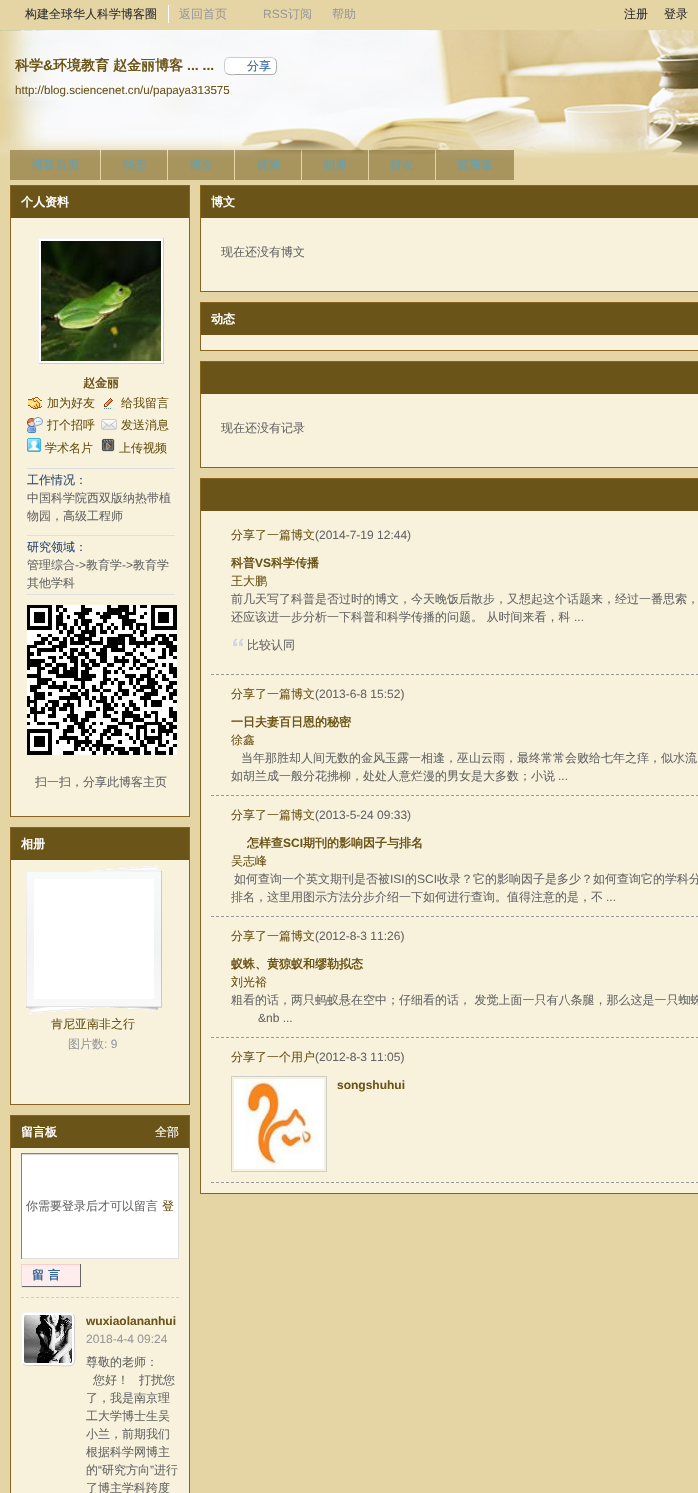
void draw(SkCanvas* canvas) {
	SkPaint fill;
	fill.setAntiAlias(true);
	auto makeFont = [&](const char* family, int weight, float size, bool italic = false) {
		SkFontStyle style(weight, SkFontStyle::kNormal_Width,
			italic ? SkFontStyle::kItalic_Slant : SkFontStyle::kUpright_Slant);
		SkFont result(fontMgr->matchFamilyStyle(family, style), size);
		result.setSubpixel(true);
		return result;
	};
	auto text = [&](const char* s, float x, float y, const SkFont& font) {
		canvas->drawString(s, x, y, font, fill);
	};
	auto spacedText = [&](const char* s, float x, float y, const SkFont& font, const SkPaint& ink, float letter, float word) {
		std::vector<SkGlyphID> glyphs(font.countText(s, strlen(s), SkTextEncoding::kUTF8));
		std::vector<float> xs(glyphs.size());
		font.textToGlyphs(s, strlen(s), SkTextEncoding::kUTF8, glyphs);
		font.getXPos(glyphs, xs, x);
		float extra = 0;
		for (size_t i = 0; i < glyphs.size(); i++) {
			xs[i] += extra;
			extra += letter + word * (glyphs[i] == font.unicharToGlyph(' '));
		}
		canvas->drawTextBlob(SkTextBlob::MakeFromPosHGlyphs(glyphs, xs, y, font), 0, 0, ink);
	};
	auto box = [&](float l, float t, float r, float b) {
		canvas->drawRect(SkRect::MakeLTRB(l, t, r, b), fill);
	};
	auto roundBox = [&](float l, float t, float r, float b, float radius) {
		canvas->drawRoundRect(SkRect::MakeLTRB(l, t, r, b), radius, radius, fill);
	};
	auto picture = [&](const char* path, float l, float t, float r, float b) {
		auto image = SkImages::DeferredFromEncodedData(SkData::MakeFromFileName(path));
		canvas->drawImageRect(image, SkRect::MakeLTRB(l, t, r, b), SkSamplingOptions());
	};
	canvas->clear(0xFFE5D5A4);
	fill.setColor(0xFFFFFFFF);
	box(168, 5, 169, 23);
	fill.setColor(0xFFD5D5D5);
	box(167, 5, 168, 23);
	picture("image0.png", 0, 30, 698, 158);
	fill.setColor(0xFFFFFFFF);
	roundBox(224, 57, 277, 75, 5);
	fill.setStyle(SkPaint::kStroke_Style);
	fill.setStrokeWidth(1);
	fill.setColor(0xFFA9A9A9);
	canvas->drawPath(SkPathBuilder().moveTo(275, 59).cubicTo(277, 61, 276.5f, 64, 276.5f, 67).cubicTo(276.5f, 76, 273.5f, 74.5f, 265, 74.5f).lineTo(236, 74.5f).cubicTo(234, 74.5f, 228.5f, 75.5f, 226, 73).detach(), fill);
	fill.setColor(0xFFCCCCCC);
	canvas->drawPath(SkPathBuilder().moveTo(226, 73).cubicTo(224, 71, 224.5f, 68, 224.5f, 65).cubicTo(224.5f, 56, 227.5f, 57.5f, 236, 57.5f).lineTo(265, 57.5f).cubicTo(267, 57.5f, 272.5f, 56.5f, 275, 59).detach(), fill);
	fill.setStyle(SkPaint::kFill_Style);
	fill.setColor(0x806B5415);
	box(10, 150, 100, 180);
	box(101, 150, 167, 180);
	box(168, 150, 234, 180);
	box(235, 150, 301, 180);
	box(302, 150, 368, 180);
	box(369, 150, 435, 180);
	box(436, 150, 514, 180);
	fill.setStyle(SkPaint::kStroke_Style);
	fill.setColor(0xFF88641C);
	canvas->drawRect(SkRect::MakeLTRB(10.5f, 185.5f, 189.5f, 816.5f), fill);
	fill.setStyle(SkPaint::kFill_Style);
	fill.setColor(0xFF6B5417);
	box(11, 186, 189, 218);
	fill.setColor(0xFFF8F2DC);
	box(11, 218, 189, 816);
	fill.setColor(0xFFF2F2F2);
	box(38, 238, 164, 239);
	fill.setColor(0xFFCDCDCD);
	box(163, 238, 164, 364);
	box(38, 363, 164, 364);
	fill.setColor(0xFFF2F2F2);
	box(38, 238, 39, 364);
	fill.setColor(0xFFFFFFFF);
	box(39, 239, 163, 363);
	picture("image1.png", 41, 241, 161, 361);
	picture("image2.png", 28, 397, 42, 409);
	picture("image3.png", 104, 398, 115, 410);
	picture("image4.png", 27, 417, 43, 433);
	picture("image5.png", 101, 419, 117, 430);
	picture("image6.png", 27, 438, 41, 452);
	picture("image7.png", 101, 438, 115, 452);
	fill.setColor(0xFFDFDFDF);
	box(27, 468, 175, 469);
	box(27, 535, 175, 536);
	box(27, 594, 175, 595);
	picture("image8.png", 27, 605, 177, 755);
	fill.setStyle(SkPaint::kStroke_Style);
	fill.setColor(0xFF88641C);
	canvas->drawRect(SkRect::MakeLTRB(10.5f, 827.5f, 189.5f, 1104.5f), fill);
	fill.setStyle(SkPaint::kFill_Style);
	fill.setColor(0xFF6B5417);
	box(11, 828, 189, 860);
	fill.setColor(0xFFF8F2DC);
	box(11, 860, 189, 1104);
	picture("image9.png", 26, 865, 162, 1014);
	fill.setStyle(SkPaint::kStroke_Style);
	fill.setColor(0xFF88641C);
	canvas->drawRect(SkRect::MakeLTRB(10.5f, 1115.5f, 189.5f, 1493.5f), fill);
	fill.setStyle(SkPaint::kFill_Style);
	fill.setColor(0xFF6B5417);
	box(11, 1116, 189, 1148);
	fill.setColor(0xFFF8F2DC);
	box(11, 1148, 189, 1493);
	fill.setColor(0xFFFFFFFF);
	box(22, 1155, 178, 1258);
	fill.setColor(0xFFD4D4D4);
	box(21, 1154, 179, 1155);
	fill.setColor(0xFF848484);
	box(21, 1153, 179, 1154);
	fill.setColor(0xFFE0E0E0);
	box(178, 1153, 179, 1259);
	box(21, 1258, 179, 1259);
	fill.setColor(0xFF848484);
	box(21, 1153, 22, 1259);
	fill.setColor(0xFFE5E5E5);
	box(21, 1287, 81, 1288);
	fill.setColor(0xFFFFECEC);
	box(22, 1265, 80, 1286);
	fill.setColor(0xFFFFCCCC);
	box(21, 1264, 81, 1265);
	fill.setColor(0xFF666666);
	box(80, 1264, 81, 1287);
	box(21, 1286, 81, 1287);
	fill.setColor(0xFFFFCCCC);
	box(21, 1264, 22, 1287);
	fill.setStyle(SkPaint::kStroke_Style);
	fill.setColor(0xFFCDCDCD);
	fill.setPathEffect(SkDashPathEffect::Make({{3, 2}}, 0));
	canvas->drawPath(SkPathBuilder().moveTo(21, 1297.5f).lineTo(179, 1297.5f).detach(), fill);
	fill.setPathEffect(nullptr);
	fill.setStyle(SkPaint::kFill_Style);
	fill.setColor(0xFFFFFFFF);
	roundBox(21, 1312, 75, 1366, 5);
	fill.setStyle(SkPaint::kStroke_Style);
	fill.setColor(0xFFCDCDCD);
	canvas->drawPath(SkPathBuilder().moveTo(73, 1314).cubicTo(75.5f, 1316.5f, 74.5f, 1322, 74.5f, 1324.5f).lineTo(74.5f, 1339).cubicTo(74.5f, 1371, 80, 1365.5f, 48, 1365.5f).lineTo(33.5f, 1365.5f).cubicTo(31, 1365.5f, 25.5f, 1366.5f, 23, 1364).detach(), fill);
	fill.setColor(0xFFF2F2F2);
	canvas->drawPath(SkPathBuilder().moveTo(23, 1364).cubicTo(20.5f, 1361.5f, 21.5f, 1356, 21.5f, 1353.5f).lineTo(21.5f, 1339).cubicTo(21.5f, 1307, 16, 1312.5f, 48, 1312.5f).lineTo(62.5f, 1312.5f).cubicTo(65, 1312.5f, 70.5f, 1311.5f, 73, 1314).detach(), fill);
	picture("image10.png", 24, 1315, 72, 1363);
	fill.setColor(0xFF88641C);
	canvas->drawRect(SkRect::MakeLTRB(200.5f, 185.5f, 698.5f, 291.5f), fill);
	fill.setStyle(SkPaint::kFill_Style);
	fill.setColor(0xFF6B5417);
	box(201, 186, 698, 218);
	fill.setColor(0xFFF8F2DC);
	box(201, 218, 698, 291);
	fill.setStyle(SkPaint::kStroke_Style);
	fill.setColor(0xFF88641C);
	canvas->drawRect(SkRect::MakeLTRB(200.5f, 302.5f, 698.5f, 350.5f), fill);
	fill.setStyle(SkPaint::kFill_Style);
	fill.setColor(0xFF6B5417);
	box(201, 303, 698, 335);
	fill.setColor(0xFFF8F2DC);
	box(201, 335, 698, 350);
	fill.setStyle(SkPaint::kStroke_Style);
	fill.setColor(0xFF88641C);
	canvas->drawRect(SkRect::MakeLTRB(200.5f, 361.5f, 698.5f, 467.5f), fill);
	fill.setStyle(SkPaint::kFill_Style);
	fill.setColor(0xFF6B5417);
	box(201, 362, 698, 394);
	fill.setColor(0xFFF8F2DC);
	box(201, 394, 698, 467);
	fill.setStyle(SkPaint::kStroke_Style);
	fill.setColor(0xFF88641C);
	canvas->drawRect(SkRect::MakeLTRB(200.5f, 478.5f, 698.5f, 1193.5f), fill);
	fill.setStyle(SkPaint::kFill_Style);
	fill.setColor(0xFF6B5417);
	box(201, 479, 698, 511);
	fill.setColor(0xFFF8F2DC);
	box(201, 511, 698, 1193);
	fill.setStyle(SkPaint::kStroke_Style);
	fill.setColor(0xFF999999);
	fill.setPathEffect(SkDashPathEffect::Make({{3, 2}}, 0));
	canvas->drawPath(SkPathBuilder().moveTo(211, 674.5f).lineTo(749, 674.5f).detach(), fill);
	fill.setPathEffect(nullptr);
	picture("image11.png", 232, 638, 244, 646);
	fill.setPathEffect(SkDashPathEffect::Make({{3, 2}}, 0));
	canvas->drawPath(SkPathBuilder().moveTo(211, 795.5f).lineTo(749, 795.5f).detach(), fill);
	fill.setPathEffect(nullptr);
	fill.setPathEffect(SkDashPathEffect::Make({{3, 2}}, 0));
	canvas->drawPath(SkPathBuilder().moveTo(211, 916.5f).lineTo(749, 916.5f).detach(), fill);
	fill.setPathEffect(nullptr);
	fill.setPathEffect(SkDashPathEffect::Make({{3, 2}}, 0));
	canvas->drawPath(SkPathBuilder().moveTo(211, 1037.5f).lineTo(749, 1037.5f).detach(), fill);
	fill.setPathEffect(nullptr);
	fill.setPathEffect(SkDashPathEffect::Make({{3, 2}}, 0));
	canvas->drawPath(SkPathBuilder().moveTo(211, 1182.5f).lineTo(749, 1182.5f).detach(), fill);
	fill.setPathEffect(nullptr);
	fill.setColor(0xFFCDCDCD);
	canvas->drawRect(SkRect::MakeLTRB(231.5f, 1076.5f, 326.5f, 1171.5f), fill);
	picture("image12.png", 234, 1079, 324, 1169);
	auto font1 = makeFont("WenQuanYi Zen Hei", 500, 12);
	fill.setStyle(SkPaint::kFill_Style);
	fill.setColor(0xFF333333);
	text("构建全球华人科学博客圈", 25, 18, font1);
	fill.setColor(0xFF999999);
	text("返回首页", 179, 18, font1);
	auto font2 = makeFont("Liberation Sans", 400, 12);
	text("RSS", 263, 18, font2);
	text("订阅", 288, 18, font1);
	text("帮助", 332, 18, font1);
	fill.setColor(0xFF333333);
	text("注册", 624, 18, font1);
	text("登录", 664, 18, font1);
	auto font3 = makeFont("WenQuanYi Zen Hei", 700, 14);
	fill.setColor(0xFF6B5417);
	text("科学", 15, 70, font3);
	auto font4 = makeFont("Liberation Sans", 700, 14);
	text("&", 43, 70, font4);
	text("环境教育", 53, 70, font3);
	text("赵金丽博客", 113, 70, font3);
	text("... ...", 187, 70, font4);
	fill.setColor(0xFF336699);
	text("分享", 247, 70, font1);
	auto font5 = makeFont("Liberation Sans", 400, 11.6f);
	fill.setColor(0xFF6B5417);
	text("http://blog.sciencenet.cn/u/papaya313575", 15, 94, font5);
	auto font6 = makeFont("WenQuanYi Zen Hei", 700, 12);
	fill.setColor(0xFF739E9F);
	text("博客首页", 31, 169, font6);
	text("动态", 122, 169, font6);
	text("博文", 189, 169, font6);
	text("视频", 256, 169, font6);
	text("相册", 323, 169, font6);
	text("好友", 390, 169, font6);
	text("留言板", 457, 169, font6);
	fill.setColor(0xFFFFFFFF);
	text("个人资料", 21, 206, font6);
	fill.setColor(0xFF6B5417);
	text("赵金丽", 83, 387, font6);
	text("加为好友", 47, 407, font1);
	text("给我留言", 121, 407, font1);
	text("打个招呼", 47, 429, font1);
	text("发送消息", 121, 429, font1);
	text("学术名片", 45, 452, font1);
	text("上传视频", 119, 452, font1);
	fill.setColor(0xFF2F496F);
	text("工作情况：", 27, 484, font1);
	fill.setColor(0xFF666666);
	text("中国科学院西双版纳热带植", 27, 502, font1);
	text("物园，高级工程师", 27, 520, font1);
	fill.setColor(0xFF2F496F);
	text("研究领域：", 27, 551, font1);
	fill.setColor(0xFF666666);
	text("管理综合", 27, 569, font1);
	text("->", 75, 569, font2);
	text("教育学", 86, 569, font1);
	text("->", 122, 569, font2);
	text("教育学", 133, 569, font1);
	text("其他学科", 27, 587, font1);
	text("扫一扫，分享此博客主页", 35, 786, font1);
	fill.setColor(0xFFFFFFFF);
	text("相册", 21, 848, font6);
	fill.setColor(0xFF6B5417);
	text("肯尼亚南非之行", 51, 1028, font1);
	fill.setColor(0xFF999999);
	text("图片数", 68, 1048, font1);
	text(": 9", 104, 1048, font2);
	fill.setColor(0xFFFFFFFF);
	text("留言板", 21, 1136, font6);
	text("全部", 155, 1136, font1);
	fill.setColor(0xFF666666);
	text("你需要登录后才可以留言", 26, 1210, font1);
	fill.setColor(0xFF6B5417);
	text("登", 162, 1210, font1);
	fill.setColor(0xFF336699);
	spacedText("留言", 32, 1279, font6, fill, 4, 0);
	auto font7 = makeFont("Liberation Sans", 700, 12);
	fill.setColor(0xFF6B5417);
	text("wuxiaolananhui", 86, 1325, font7);
	fill.setColor(0xFF999999);
	text("2018-4-4 09:24", 86, 1343, font2);
	fill.setColor(0xFF666666);
	text("尊敬的老师：", 86, 1366, font1);
	text("您好！", 93, 1384, font1);
	text("打扰您", 139, 1384, font1);
	text("了，我是南京理", 86, 1402, font1);
	text("工大学博士生吴", 86, 1420, font1);
	text("小兰，前期我们", 86, 1438, font1);
	text("根据科学网博主", 86, 1456, font1);
	text("的", 86, 1474, font1);
	text("“", 98, 1474, font2);
	text("研究方向", 102, 1474, font1);
	text("”", 150, 1474, font2);
	text("进行", 154, 1474, font1);
	text("了博主学科跨度", 86, 1492, font1);
	fill.setColor(0xFFFFFFFF);
	text("博文", 211, 206, font6);
	fill.setColor(0xFF666666);
	text("现在还没有博文", 221, 256, font1);
	fill.setColor(0xFFFFFFFF);
	text("动态", 211, 323, font6);
	fill.setColor(0xFF666666);
	text("现在还没有记录", 221, 432, font1);
	fill.setColor(0xFF6B5417);
	text("分享了一篇博文", 231, 539, font1);
	fill.setColor(0xFF666666);
	text("(2014-7-19 12:44)", 315, 539, font2);
	fill.setColor(0xFF6B5417);
	text("科普", 231, 567, font6);
	text("VS", 255, 567, font7);
	text("科学传播", 271, 567, font6);
	text("王大鹏", 231, 585, font1);
	fill.setColor(0xFF666666);
	text("前几天写了科普是否过时的博文，今天晚饭后散步，又想起这个话题来，经过一番思索，", 231, 603, font1);
	text("还应该进一步分析一下科普和科学传播的问题。 从时间来看，科", 231, 621, font1);
	text("...", 574, 621, font2);
	text("比较认同", 247, 649, font1);
	fill.setColor(0xFF6B5417);
	text("分享了一篇博文", 231, 698, font1);
	fill.setColor(0xFF666666);
	text("(2013-6-8 15:52)", 315, 698, font2);
	fill.setColor(0xFF6B5417);
	text("一日夫妻百日恩的秘密", 231, 726, font6);
	text("徐鑫", 231, 744, font1);
	fill.setColor(0xFF666666);
	text("当年那胜却人间无数的金风玉露一相逢，巫山云雨，最终常常会败给七年之痒，似水流", 241, 762, font1);
	text("如胡兰成一般分花拂柳，处处人意烂漫的男女是大多数；小说", 231, 780, font1);
	text("...", 558, 780, font2);
	fill.setColor(0xFF6B5417);
	text("分享了一篇博文", 231, 819, font1);
	fill.setColor(0xFF666666);
	text("(2013-5-24 09:33)", 315, 819, font2);
	fill.setColor(0xFF6B5417);
	text("怎样查", 247, 847, font6);
	text("SCI", 283, 847, font7);
	text("期刊的影响因子与排名", 303, 847, font6);
	text("吴志峰", 231, 865, font1);
	fill.setColor(0xFF666666);
	text("如何查询一个英文期刊是否被", 234, 883, font1);
	text("ISI", 390, 883, font2);
	text("的", 405, 883, font1);
	text("SCI", 417, 883, font2);
	text("收录？它的影响因子是多少？如何查询它的学科分", 437, 883, font1);
	text("排名，这里用图示方法分步介绍一下如何进行查询。值得注意的是，不", 231, 901, font1);
	text("...", 606, 901, font2);
	fill.setColor(0xFF6B5417);
	text("分享了一篇博文", 231, 940, font1);
	fill.setColor(0xFF666666);
	text("(2012-8-3 11:26)", 315, 940, font2);
	fill.setColor(0xFF6B5417);
	text("蚁蛛、黄猄蚁和缪勒拟态", 231, 968, font6);
	text("刘光裕", 231, 986, font1);
	fill.setColor(0xFF666666);
	text("粗看的话，两只蚂蚁悬在空中；仔细看的话， 发觉上面一只有八条腿，那么这是一只蜘蛛", 231, 1004, font1);
	text("&nb ...", 258, 1022, font2);
	fill.setColor(0xFF6B5417);
	text("分享了一个用户", 231, 1061, font1);
	fill.setColor(0xFF666666);
	text("(2012-8-3 11:05)", 315, 1061, font2);
	fill.setColor(0xFF6B5417);
	text("songshuhui", 337, 1089, font7);
}
